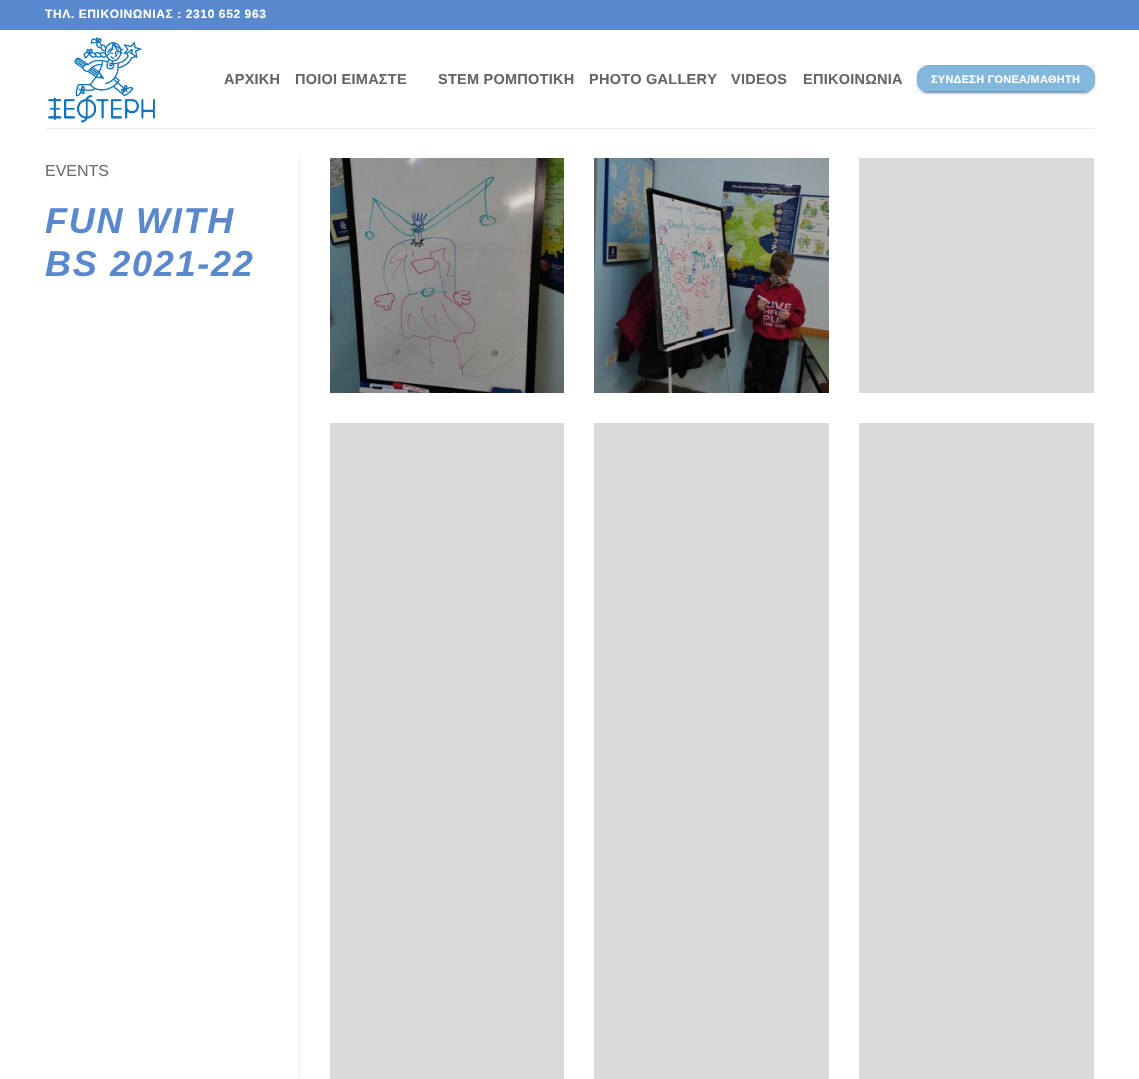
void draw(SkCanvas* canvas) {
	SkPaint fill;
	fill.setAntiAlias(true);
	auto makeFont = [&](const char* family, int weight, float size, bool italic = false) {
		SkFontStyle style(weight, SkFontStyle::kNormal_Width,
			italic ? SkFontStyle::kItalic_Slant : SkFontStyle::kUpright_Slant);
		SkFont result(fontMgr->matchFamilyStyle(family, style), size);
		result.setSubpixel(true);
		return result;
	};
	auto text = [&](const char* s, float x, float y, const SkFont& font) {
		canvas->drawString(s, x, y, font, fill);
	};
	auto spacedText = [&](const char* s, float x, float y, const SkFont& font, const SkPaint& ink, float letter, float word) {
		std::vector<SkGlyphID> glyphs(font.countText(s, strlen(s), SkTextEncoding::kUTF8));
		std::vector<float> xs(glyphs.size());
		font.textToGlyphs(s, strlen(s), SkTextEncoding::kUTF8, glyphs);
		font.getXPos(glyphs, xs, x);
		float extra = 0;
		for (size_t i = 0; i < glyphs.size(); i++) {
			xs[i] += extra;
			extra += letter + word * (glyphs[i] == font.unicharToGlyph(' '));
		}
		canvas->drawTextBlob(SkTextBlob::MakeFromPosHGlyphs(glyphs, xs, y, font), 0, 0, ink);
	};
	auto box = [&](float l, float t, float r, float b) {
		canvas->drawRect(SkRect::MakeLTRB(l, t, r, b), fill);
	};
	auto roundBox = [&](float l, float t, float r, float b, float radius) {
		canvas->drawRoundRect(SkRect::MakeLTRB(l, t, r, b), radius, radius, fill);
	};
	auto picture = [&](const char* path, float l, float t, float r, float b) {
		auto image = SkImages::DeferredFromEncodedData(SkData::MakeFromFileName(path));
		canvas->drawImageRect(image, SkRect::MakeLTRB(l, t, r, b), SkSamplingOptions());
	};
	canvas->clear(0xFFFFFFFF);
	fill.setColor(0xFF5989CC);
	box(0, 0, 1139, 30);
	picture("image0.png", 48, 37, 155, 123);
	fill.setColor(0x3D000000);
	fill.setMaskFilter(SkMaskFilter::MakeBlur(kNormal_SkBlurStyle, 1));
	canvas->drawRoundRect(SkRect::MakeLTRB(917, 66, 1095, 94), 12, 12, fill);
	fill.setMaskFilter(nullptr);
	fill.setColor(0xFF83B8DC);
	roundBox(917, 65, 1095, 93, 12);
	fill.setStyle(SkPaint::kStroke_Style);
	fill.setStrokeWidth(1);
	fill.setColor(0x0D000000);
	canvas->drawRect(SkRect::MakeLTRB(917.5f, 65.5f, 1094.5f, 92.5f), fill);
	fill.setStyle(SkPaint::kFill_Style);
	fill.setColor(0x26000000);
	canvas->drawPath(SkPathBuilder().moveTo(924, 91).lineTo(929, 92).lineTo(1083, 92).lineTo(1088, 91).close().detach(), fill);
	fill.setColor(0xFFEDEDED);
	box(45, 128, 1095, 129);
	fill.setColor(0xFFECECEC);
	box(299, 158, 300, 1079);
	picture("image1.png", 330, 158, 564, 393);
	picture("image2.png", 594, 158, 829, 393);
	fill.setColor(0xFFD9D9D9);
	box(859, 158, 1094, 393);
	box(330, 423, 564, 1079);
	box(594, 423, 829, 1079);
	box(859, 423, 1094, 1079);
	auto font1 = makeFont("Liberation Sans", 700, 12);
	fill.setColor(0xFFFFFFFF);
	spacedText("ΤΗΛ. ΕΠΙΚΟΙΝΩΝΙΑΣ : 2310 652 963", 45, 18, font1, fill, 0.6f, 0);
	auto font2 = makeFont("Liberation Sans", 700, 14.5f);
	fill.setColor(0xFF656565);
	spacedText("ΑΡΧΙΚΗ", 224, 84, font2, fill, 0.25f, 0);
	spacedText("ΠΟΙΟΙ ΕΙΜΑΣΤΕ", 295, 84, font2, fill, 0.25f, 0);
	spacedText("STEM ΡΟΜΠΟΤΙΚΗ", 438, 84, font2, fill, 0.25f, 0);
	spacedText("PHOTO GALLERY", 589, 84, font2, fill, 0.25f, 0);
	spacedText("VIDEOS", 731, 84, font2, fill, 0.25f, 0);
	spacedText("ΕΠΙΚΟΙΝΩΝΙΑ", 803, 84, font2, fill, 0.25f, 0);
	auto font3 = makeFont("Liberation Sans", 700, 10.9f);
	fill.setColor(0xFFFFFFFF);
	spacedText("ΣΥΝΔΕΣΗ ΓΟΝΕΑ/ΜΑΘΗΤΗ", 931, 83, font3, fill, 0.3f, 0);
	auto font4 = makeFont("Liberation Sans", 400, 16);
	fill.setColor(0xFF6E6E6E);
	text("EVENTS", 45, 176, font4);
	auto font5 = makeFont("Liberation Sans", 700, 36, true);
	fill.setColor(0xFF5989CC);
	spacedText("FUN WITH", 45, 233, font5, fill, 1.75f, 0);
	spacedText("BS 2021-22", 45, 276, font5, fill, 1.75f, 0);
}
